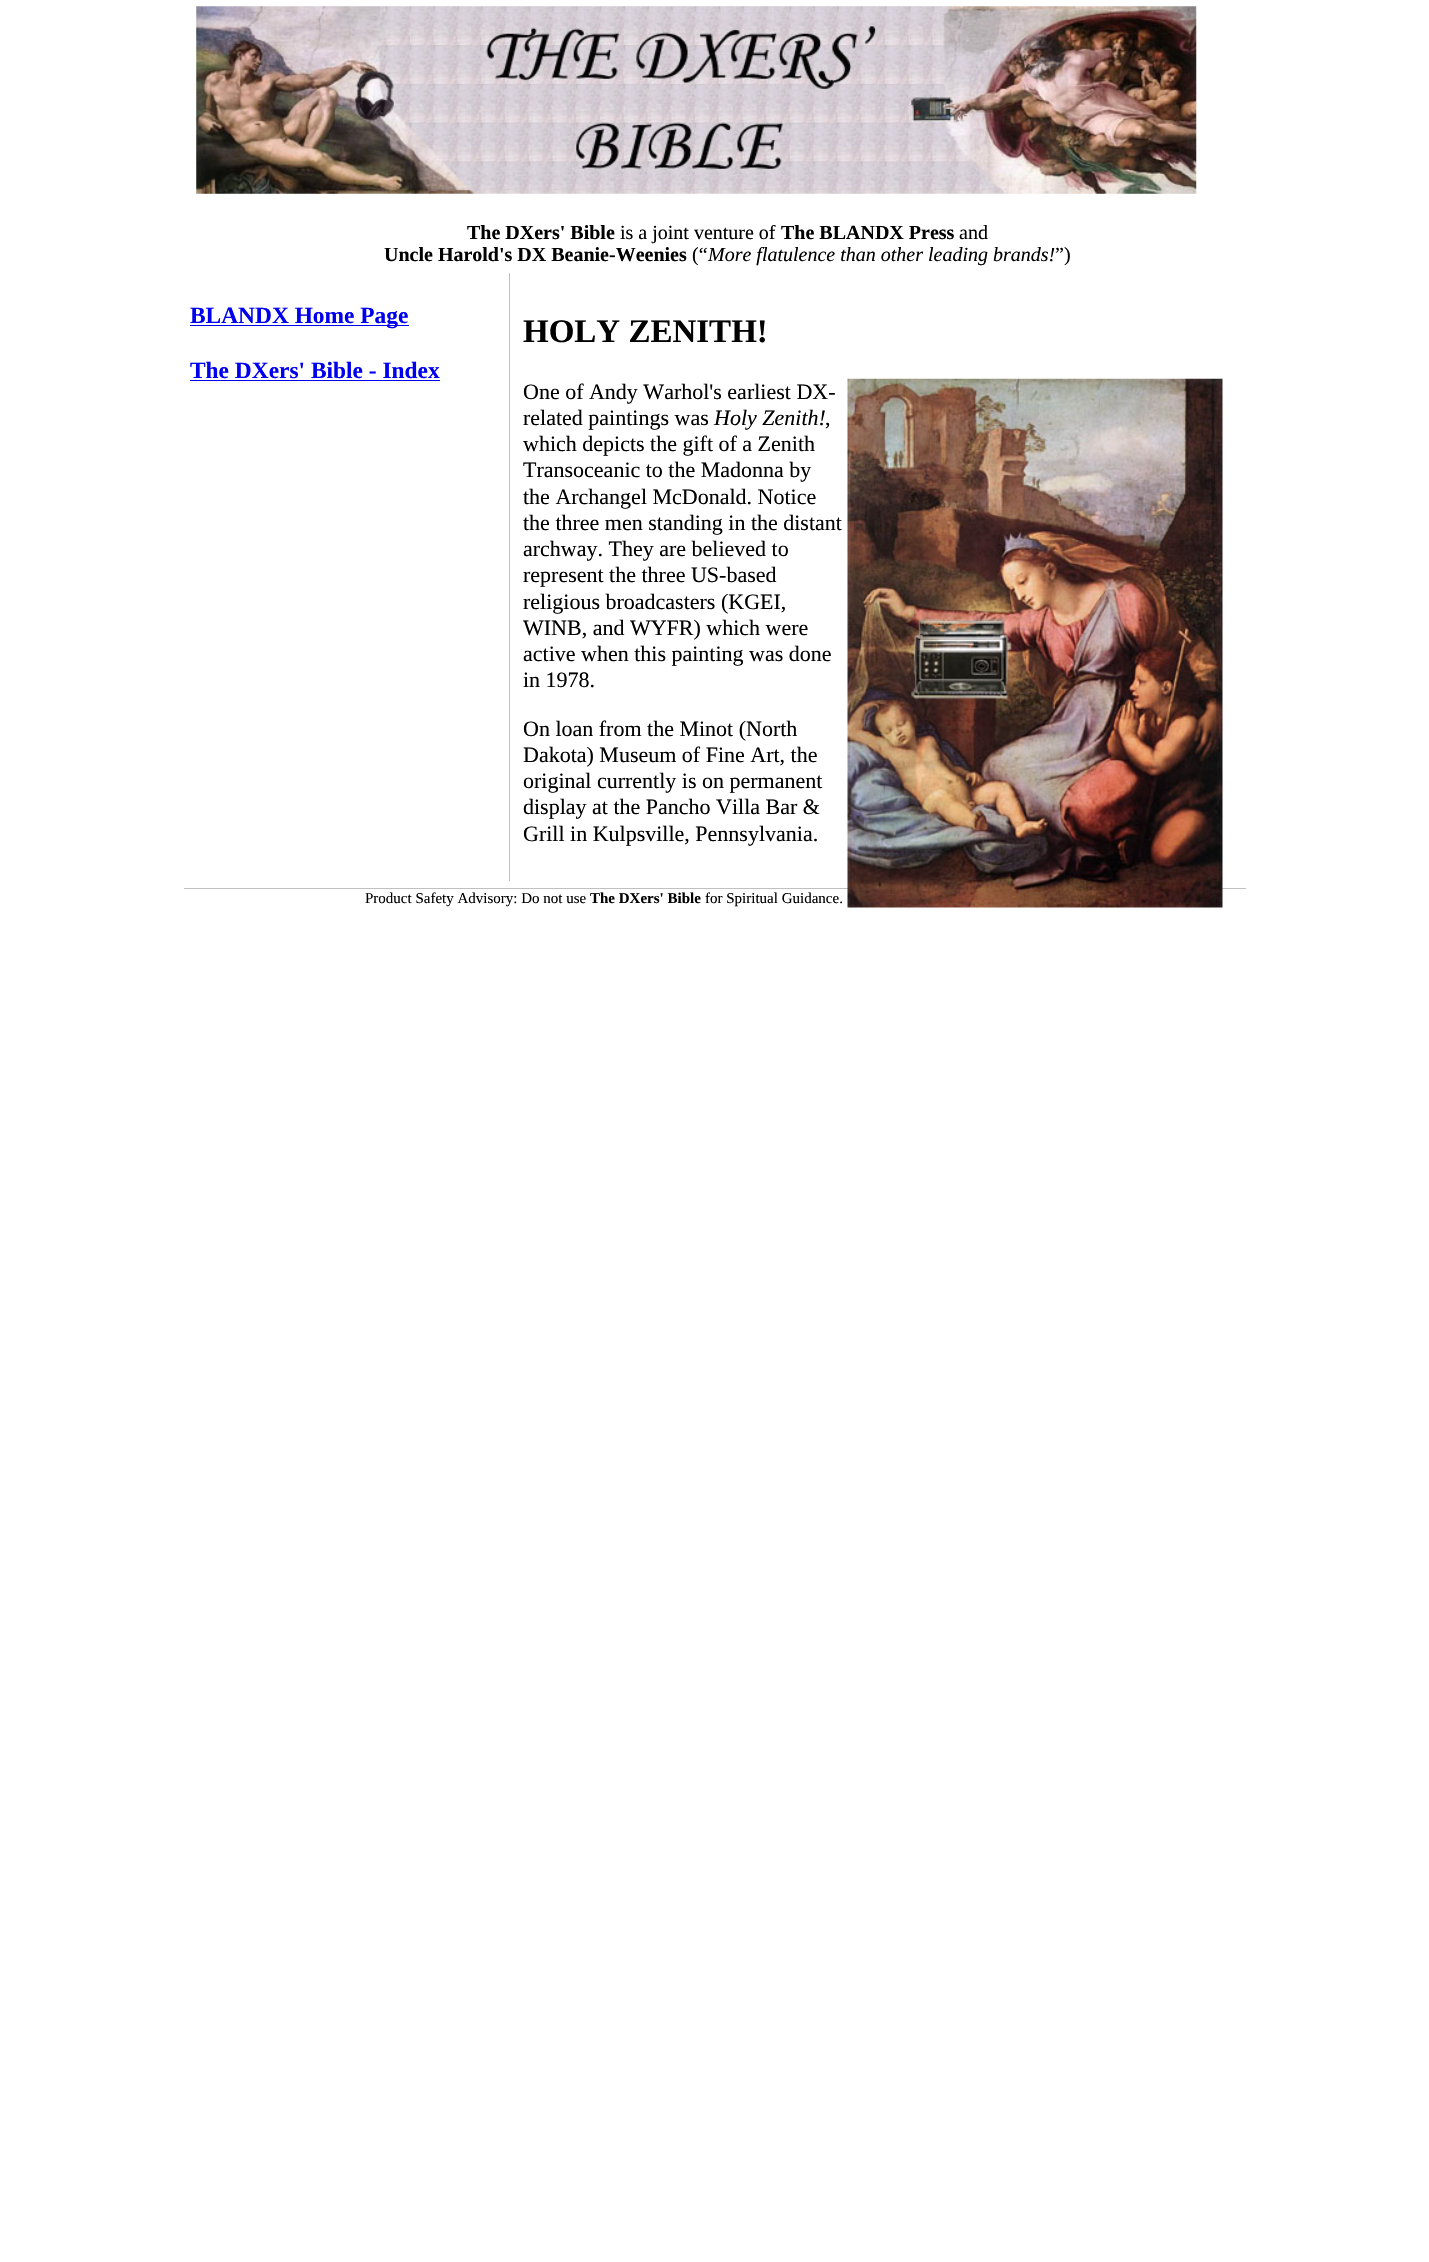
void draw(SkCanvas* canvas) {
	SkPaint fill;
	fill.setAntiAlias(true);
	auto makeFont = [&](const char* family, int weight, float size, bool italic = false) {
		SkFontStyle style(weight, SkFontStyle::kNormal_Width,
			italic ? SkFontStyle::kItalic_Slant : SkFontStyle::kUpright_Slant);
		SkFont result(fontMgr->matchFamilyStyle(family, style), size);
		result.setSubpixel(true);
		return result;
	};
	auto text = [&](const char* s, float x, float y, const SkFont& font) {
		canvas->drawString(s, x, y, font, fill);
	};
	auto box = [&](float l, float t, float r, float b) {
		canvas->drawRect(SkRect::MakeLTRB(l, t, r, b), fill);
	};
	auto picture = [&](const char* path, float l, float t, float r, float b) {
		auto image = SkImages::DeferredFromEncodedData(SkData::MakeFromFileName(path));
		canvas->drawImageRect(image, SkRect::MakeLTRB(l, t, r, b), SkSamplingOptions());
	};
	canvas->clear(0xFFFFFFFF);
	picture("image0.png", 196, 6, 1197, 194);
	fill.setColor(0xFF0000EE);
	box(190, 325, 409, 326);
	box(190, 380, 440, 381);
	fill.setColor(0xFFC0C0C0);
	box(509, 273, 510, 881);
	box(184, 888, 1246, 889);
	picture("image1.png", 847, 378, 1223, 908);
	auto font1 = makeFont("Liberation Serif", 700, 20);
	fill.setColor(0xFF000000);
	text("The DXers' Bible", 467, 239, font1);
	auto font2 = makeFont("Liberation Serif", 400, 20);
	text("is a joint venture of", 620, 239, font2);
	text("The BLANDX Press", 781, 239, font1);
	text("and", 959, 239, font2);
	text("Uncle Harold's DX Beanie-Weenies", 384, 261, font1);
	text("(“", 692, 261, font2);
	auto font3 = makeFont("Liberation Serif", 400, 20, true);
	text("More flatulence than other leading brands!", 708, 261, font3);
	text("”)", 1055, 261, font2);
	auto font4 = makeFont("Liberation Serif", 700, 23.4f);
	fill.setColor(0xFF0000EE);
	text("BLANDX Home Page", 190, 323, font4);
	text("The DXers' Bible - Index", 190, 378, font4);
	auto font5 = makeFont("Liberation Serif", 700, 33);
	fill.setColor(0xFF000000);
	text("HOLY ZENITH!", 523, 342, font5);
	auto font6 = makeFont("Liberation Serif", 400, 22);
	text("One of Andy Warhol's earliest DX-", 523, 399, font6);
	text("related paintings was", 523, 425, font6);
	auto font7 = makeFont("Liberation Serif", 400, 22, true);
	text("Holy Zenith!", 714, 425, font7);
	text(",", 825, 425, font6);
	text("which depicts the gift of a Zenith", 523, 451, font6);
	text("Transoceanic to the Madonna by", 523, 477, font6);
	text("the Archangel McDonald. Notice", 523, 504, font6);
	text("the three men standing in the distant", 523, 530, font6);
	text("archway. They are believed to", 523, 556, font6);
	text("represent the three US-based", 523, 582, font6);
	text("religious broadcasters (KGEI,", 523, 609, font6);
	text("WINB, and WYFR) which were", 523, 635, font6);
	text("active when this painting was done", 523, 661, font6);
	text("in 1978.", 523, 687, font6);
	text("On loan from the Minot (North", 523, 736, font6);
	text("Dakota) Museum of Fine Art, the", 523, 762, font6);
	text("original currently is on permanent", 523, 788, font6);
	text("display at the Pancho Villa Bar &", 523, 814, font6);
	text("Grill in Kulpsville, Pennsylvania.", 523, 841, font6);
	auto font8 = makeFont("Liberation Serif", 400, 15);
	text("Product Safety Advisory: Do not use", 365, 903, font8);
	auto font9 = makeFont("Liberation Serif", 700, 15);
	text("The DXers' Bible", 590, 903, font9);
	text("for Spiritual Guidance.", 705, 903, font8);
}
